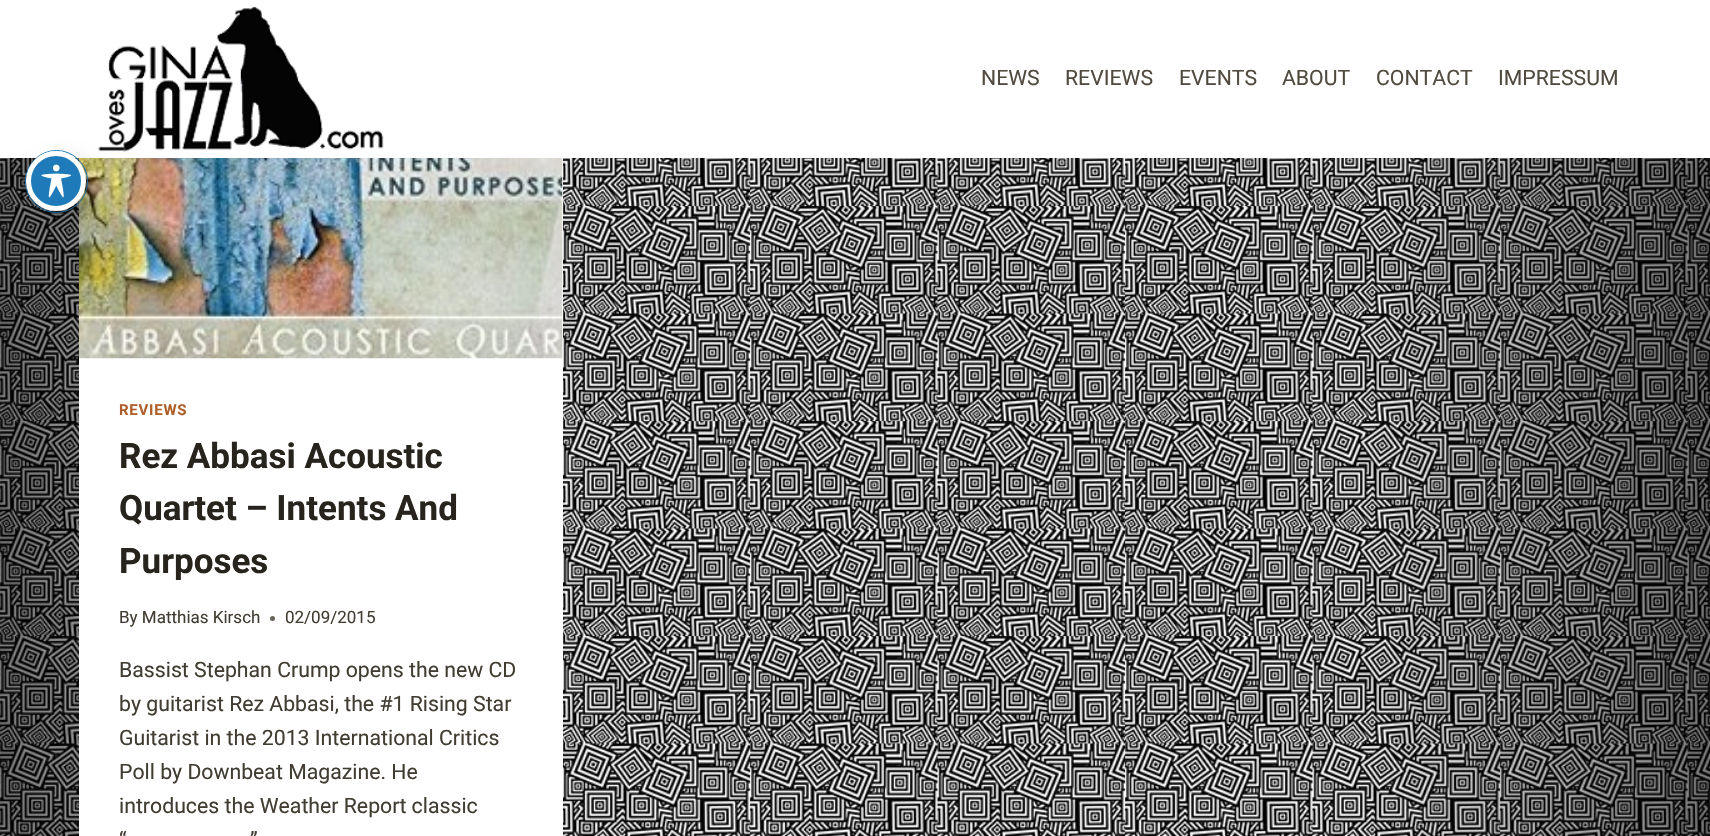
void draw(SkCanvas* canvas) {
	SkPaint fill;
	fill.setAntiAlias(true);
	auto makeFont = [&](const char* family, int weight, float size, bool italic = false) {
		SkFontStyle style(weight, SkFontStyle::kNormal_Width,
			italic ? SkFontStyle::kItalic_Slant : SkFontStyle::kUpright_Slant);
		SkFont result(fontMgr->matchFamilyStyle(family, style), size);
		result.setSubpixel(true);
		return result;
	};
	auto text = [&](const char* s, float x, float y, const SkFont& font) {
		canvas->drawString(s, x, y, font, fill);
	};
	auto spacedText = [&](const char* s, float x, float y, const SkFont& font, const SkPaint& ink, float letter, float word) {
		std::vector<SkGlyphID> glyphs(font.countText(s, strlen(s), SkTextEncoding::kUTF8));
		std::vector<float> xs(glyphs.size());
		font.textToGlyphs(s, strlen(s), SkTextEncoding::kUTF8, glyphs);
		font.getXPos(glyphs, xs, x);
		float extra = 0;
		for (size_t i = 0; i < glyphs.size(); i++) {
			xs[i] += extra;
			extra += letter + word * (glyphs[i] == font.unicharToGlyph(' '));
		}
		canvas->drawTextBlob(SkTextBlob::MakeFromPosHGlyphs(glyphs, xs, y, font), 0, 0, ink);
	};
	auto box = [&](float l, float t, float r, float b) {
		canvas->drawRect(SkRect::MakeLTRB(l, t, r, b), fill);
	};
	auto picture = [&](const char* path, float l, float t, float r, float b) {
		auto image = SkImages::DeferredFromEncodedData(SkData::MakeFromFileName(path));
		canvas->drawImageRect(image, SkRect::MakeLTRB(l, t, r, b), SkSamplingOptions());
	};
	canvas->clear(0xFFFFFFFF);
	picture("image0.png", 0, 158, 1710, 836);
	fill.setColor(0xFFFFFFFF);
	box(79, 158, 563, 836);
	picture("image3.png", 78, 158, 563, 359);
	fill.setStyle(SkPaint::kStroke_Style);
	fill.setStrokeWidth(1);
	fill.setColor(0xFF1E7AB9);
	canvas->drawCircle(56.5f, 181.5f, 31, fill);
	picture("image2.png", 98, 6, 384, 152);
	fill.setStyle(SkPaint::kFill_Style);
	fill.setColor(0x33000000);
	fill.setMaskFilter(SkMaskFilter::MakeBlur(kNormal_SkBlurStyle, 10));
	canvas->drawRoundRect(SkRect::MakeLTRB(34, 161, 94, 221), 30, 30, fill);
	fill.setMaskFilter(nullptr);
	fill.setColor(0xFF1E7AB9);
	canvas->drawCircle(56, 181, 27.5f, fill);
	fill.setStyle(SkPaint::kStroke_Style);
	fill.setStrokeWidth(5);
	fill.setColor(0xFFFFFFFF);
	canvas->drawCircle(56, 181, 27.5f, fill);
	picture("image1.png", 41, 164, 71, 198);
	fill.setStyle(SkPaint::kFill_Style);
	fill.setColor(0xFF68645C);
	canvas->drawCircle(272.5f, 618.5f, 2.5f, fill);
	auto font1 = makeFont("Roboto", 400, 21.25f);
	fill.setColor(0xFF504A40);
	text("NEWS", 981, 85, font1);
	text("REVIEWS", 1065, 85, font1);
	text("EVENTS", 1179, 85, font1);
	text("ABOUT", 1282, 85, font1);
	text("CONTACT", 1376, 85, font1);
	text("IMPRESSUM", 1498, 85, font1);
	auto font2 = makeFont("Roboto", 700, 15);
	fill.setColor(0xFFB05F2B);
	spacedText("REVIEWS", 119, 415, font2, fill, 0.75f, 0);
	auto font3 = makeFont("Roboto", 700, 35);
	fill.setColor(0xFF27241D);
	text("Rez Abbasi Acoustic", 119, 468, font3);
	text("Quartet – Intents And", 119, 520, font3);
	text("Purposes", 119, 573, font3);
	auto font4 = makeFont("Roboto", 400, 17);
	fill.setColor(0xFF423D33);
	text("By Matthias Kirsch", 119, 623, font4);
	text("02/09/2015", 285, 623, font4);
	text("Bassist Stephan Crump opens the new CD", 119, 677, font1);
	text("by guitarist Rez Abbasi, the #1 Rising Star", 119, 711, font1);
	text("Guitarist in the 2013 International Critics", 119, 745, font1);
	text("Poll by Downbeat Magazine. He", 119, 779, font1);
	text("introduces the Weather Report classic", 119, 813, font1);
	text("“", 119, 847, font1);
	text("”", 250, 847, font1);
}
